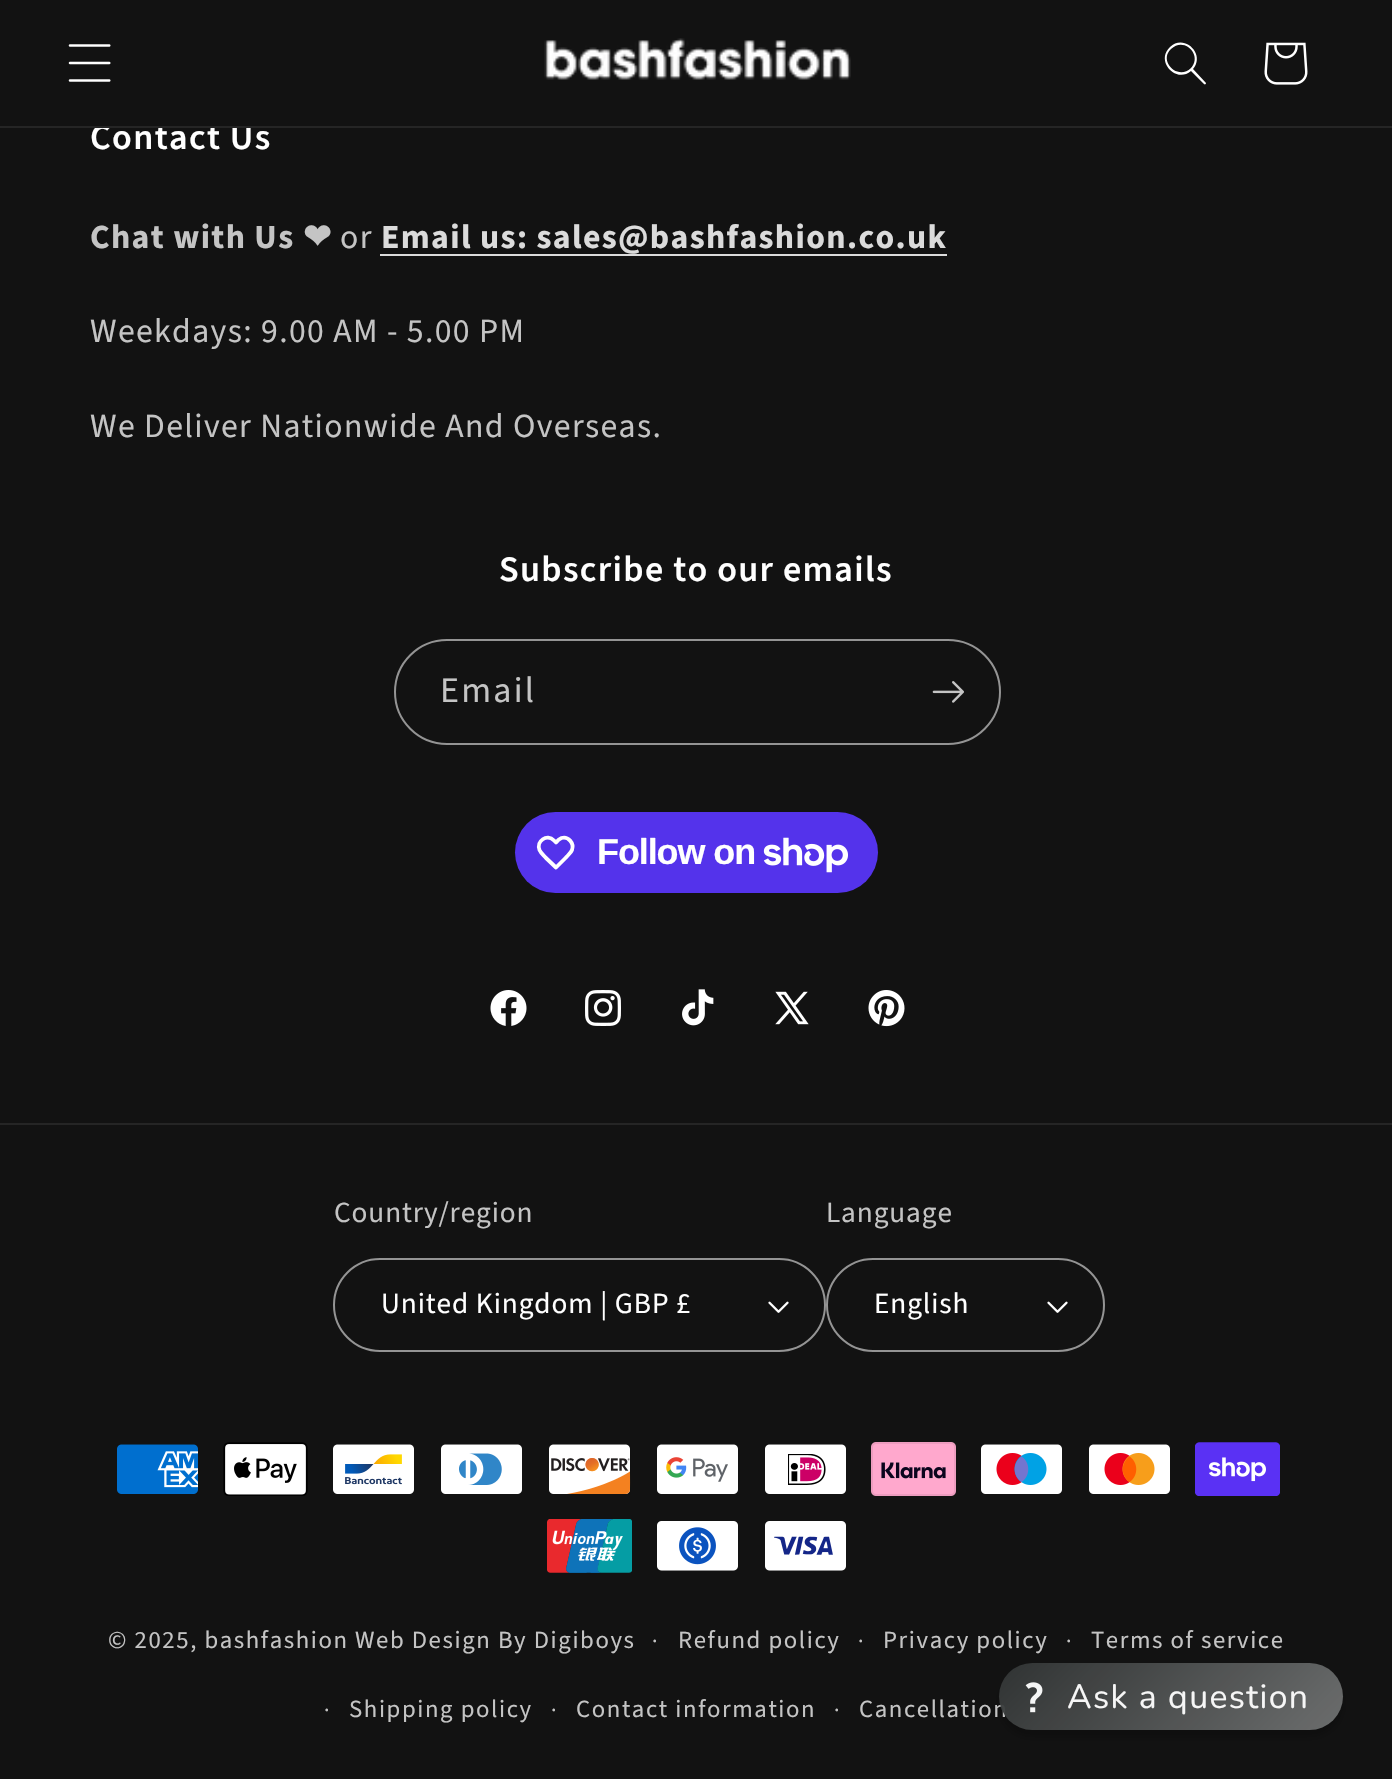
void draw(SkCanvas* canvas) {
	SkPaint fill;
	fill.setAntiAlias(true);
	auto makeFont = [&](const char* family, int weight, float size, bool italic = false) {
		SkFontStyle style(weight, SkFontStyle::kNormal_Width,
			italic ? SkFontStyle::kItalic_Slant : SkFontStyle::kUpright_Slant);
		SkFont result(fontMgr->matchFamilyStyle(family, style), size);
		result.setSubpixel(true);
		return result;
	};
	auto spacedText = [&](const char* s, float x, float y, const SkFont& font, const SkPaint& ink, float letter, float word) {
		std::vector<SkGlyphID> glyphs(font.countText(s, strlen(s), SkTextEncoding::kUTF8));
		std::vector<float> xs(glyphs.size());
		font.textToGlyphs(s, strlen(s), SkTextEncoding::kUTF8, glyphs);
		font.getXPos(glyphs, xs, x);
		float extra = 0;
		for (size_t i = 0; i < glyphs.size(); i++) {
			xs[i] += extra;
			extra += letter + word * (glyphs[i] == font.unicharToGlyph(' '));
		}
		canvas->drawTextBlob(SkTextBlob::MakeFromPosHGlyphs(glyphs, xs, y, font), 0, 0, ink);
	};
	auto box = [&](float l, float t, float r, float b) {
		canvas->drawRect(SkRect::MakeLTRB(l, t, r, b), fill);
	};
	auto roundBox = [&](float l, float t, float r, float b, float radius) {
		canvas->drawRoundRect(SkRect::MakeLTRB(l, t, r, b), radius, radius, fill);
	};
	auto picture = [&](const char* path, float l, float t, float r, float b) {
		auto image = SkImages::DeferredFromEncodedData(SkData::MakeFromFileName(path));
		canvas->drawImageRect(image, SkRect::MakeLTRB(l, t, r, b), SkSamplingOptions());
	};
	canvas->clear(0xFF121212);
	picture("image0.png", 68, 44, 111, 82);
	picture("image1.png", 544, 38, 851, 80);
	fill.setColor(0xFFFFFFFF);
	canvas->drawPath(SkPathBuilder(SkPathFillType::kEvenOdd).moveTo(1191, 68).cubicTo(1178, 81, 1158, 61, 1171, 49).cubicTo(1184, 36, 1203, 55, 1191, 68).moveTo(1191, 71).cubicTo(1176, 84, 1155, 61, 1170, 47).cubicTo(1184, 33, 1206, 54, 1193, 69).lineTo(1206, 83).cubicTo(1206, 84, 1205, 85, 1204, 84).close().detach(), fill);
	picture("image2.png", 1264, 42, 1308, 85);
	fill.setColor(0xFFDBDBDB);
	box(380, 254, 947, 256);
	fill.setStyle(SkPaint::kStroke_Style);
	fill.setStrokeWidth(2);
	fill.setColor(0xFF949494);
	canvas->drawRoundRect(SkRect::MakeLTRB(395, 640, 1000, 744), 52, 52, fill);
	picture("image3.png", 932, 681, 964, 703);
	fill.setStyle(SkPaint::kFill_Style);
	fill.setColor(0xFF5433EB);
	roundBox(515, 812, 878, 893, 40.5f);
	fill.setStyle(SkPaint::kStroke_Style);
	fill.setStrokeWidth(3.8f);
	fill.setStrokeJoin(SkPaint::kRound_Join);
	fill.setColor(0xFFFFFFFF);
	canvas->drawPath(SkPathBuilder().moveTo(554, 840.5f).lineTo(556, 842.5f).cubicTo(557.5f, 840.5f, 559, 839, 561.5f, 838).cubicTo(568, 836, 574.5f, 843, 572, 850).cubicTo(571, 853, 567.5f, 855.5f, 565.5f, 858).lineTo(556, 867.5f).lineTo(546, 858).cubicTo(544, 855.5f, 541, 853.5f, 539.5f, 850).cubicTo(536, 841, 547, 833.5f, 554, 840.5f).close().detach(), fill);
	picture("image4.png", 763, 837, 848, 873);
	picture("image5.png", 490, 990, 527, 1026);
	picture("image6.png", 585, 990, 621, 1026);
	picture("image7.png", 682, 989, 714, 1026);
	picture("image8.png", 775, 991, 809, 1025);
	picture("image9.png", 868, 990, 905, 1027);
	fill.setStyle(SkPaint::kFill_Style);
	fill.setColor(0xFF252525);
	box(0, 1123, 1392, 1125);
	picture("image10.png", 768, 1301, 789, 1313);
	fill.setStyle(SkPaint::kStroke_Style);
	fill.setStrokeWidth(2);
	fill.setStrokeJoin(SkPaint::kMiter_Join);
	fill.setColor(0xFF949494);
	canvas->drawRoundRect(SkRect::MakeLTRB(334, 1259, 825, 1351), 46, 46, fill);
	picture("image10.png", 1047, 1301, 1068, 1313);
	canvas->drawRoundRect(SkRect::MakeLTRB(827, 1259, 1104, 1351), 46, 46, fill);
	picture("image11.png", 117, 1444, 198, 1494);
	picture("image12.png", 223, 1442, 308, 1496);
	picture("image13.png", 333, 1444, 414, 1494);
	picture("image14.png", 441, 1444, 522, 1494);
	picture("image15.png", 549, 1444, 631, 1494);
	picture("image16.png", 657, 1444, 738, 1494);
	picture("image17.png", 765, 1444, 846, 1494);
	picture("image18.png", 871, 1442, 956, 1496);
	picture("image19.png", 981, 1444, 1062, 1494);
	picture("image20.png", 1089, 1444, 1170, 1494);
	picture("image21.png", 1195, 1442, 1280, 1496);
	picture("image22.png", 547, 1519, 632, 1573);
	picture("image23.png", 657, 1521, 738, 1571);
	picture("image24.png", 765, 1521, 846, 1571);
	canvas->save();
	canvas->clipPath(SkPathBuilder(SkPathFillType::kEvenOdd).moveTo(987, 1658).lineTo(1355, 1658).lineTo(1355, 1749).lineTo(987, 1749).close().moveTo(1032.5f, 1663).lineTo(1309.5f, 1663).cubicTo(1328, 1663, 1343, 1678, 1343, 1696.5f).cubicTo(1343, 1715, 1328, 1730, 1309.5f, 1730).lineTo(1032.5f, 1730).cubicTo(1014, 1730, 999, 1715, 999, 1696.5f).cubicTo(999, 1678, 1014, 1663, 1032.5f, 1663).close().detach(), true);
	fill.setStyle(SkPaint::kFill_Style);
	fill.setColor(0x30000000);
	fill.setMaskFilter(SkMaskFilter::MakeBlur(kNormal_SkBlurStyle, 3.5f));
	canvas->drawRoundRect(SkRect::MakeLTRB(999, 1670, 1343, 1737), 33.5f, 33.5f, fill);
	fill.setMaskFilter(nullptr);
	canvas->restore();
	auto font1 = makeFont("Source Sans Pro", 600, 36);
	fill.setColor(0xFFFFFFFF);
	spacedText("Contact Us", 90, 149, font1, fill, 1.35f, 0);
	fill.setColor(0xFF252525);
	box(0, 126, 1392, 128);
	fill.setColor(0xFF121212);
	box(98, 125, 251, 126);
	auto font2 = makeFont("Source Sans Pro", 700, 33.75f);
	fill.setColor(0xFFC4C4C4);
	spacedText("Chat with Us", 90, 248, font2, fill, 1.35f, 0);
	auto font3 = makeFont("DejaVu Sans", 700, 33.75f);
	spacedText("❤", 303, 248, font3, fill, 1.35f, 0);
	auto font4 = makeFont("Source Sans Pro", 400, 33.75f);
	spacedText("or", 340, 248, font4, fill, 1.35f, 0);
	fill.setColor(0xFFDBDBDB);
	spacedText("Email us: sales@bashfashion.co.uk", 381, 248, font2, fill, 1.35f, 0);
	fill.setColor(0xFFC4C4C4);
	spacedText("Weekdays: 9.00 AM - 5.00 PM", 90, 342, font4, fill, 1.35f, 0);
	spacedText("We Deliver Nationwide And Overseas.", 90, 437, font4, fill, 1.35f, 0);
	fill.setColor(0xFFFFFFFF);
	spacedText("Subscribe to our emails", 499, 581, font1, fill, 1.35f, 0);
	auto font5 = makeFont("Source Sans Pro", 400, 36);
	fill.setColor(0xFFC4C4C4);
	spacedText("Email", 440, 702, font5, fill, 2.25f, 0);
	auto font6 = makeFont("Liberation Sans", 700, 36);
	fill.setColor(0xFFFFFFFF);
	spacedText("Follow on", 597, 864, font6, fill, -1.1f, 0);
	auto font7 = makeFont("Source Sans Pro", 400, 29.25f);
	fill.setColor(0xFFC4C4C4);
	spacedText("Country/region", 334, 1222, font7, fill, 0.9f, 0);
	fill.setColor(0xFFFFFFFF);
	spacedText("United Kingdom | GBP £", 381, 1313, font7, fill, 0.9f, 0);
	fill.setColor(0xFFC4C4C4);
	spacedText("Language", 826, 1222, font7, fill, 0.9f, 0);
	fill.setColor(0xFFFFFFFF);
	spacedText("English", 874, 1313, font7, fill, 0.9f, 0);
	auto font8 = makeFont("Source Sans Pro", 400, 24.75f);
	fill.setColor(0xFFC4C4C4);
	spacedText("© 2025, bashfashion", 108, 1648, font8, fill, 1.6f, 0);
	auto font9 = makeFont("Source Sans Pro", 400, 22);
	spacedText("·", 652, 1648, font9, fill, 1.6f, 0);
	spacedText("Refund policy", 678, 1648, font8, fill, 1.6f, 0);
	spacedText("·", 858, 1648, font9, fill, 1.6f, 0);
	spacedText("Privacy policy", 883, 1648, font8, fill, 1.6f, 0);
	spacedText("·", 1066, 1648, font9, fill, 1.6f, 0);
	spacedText("Terms of service", 1091, 1648, font8, fill, 1.6f, 0);
	spacedText("·", 324, 1717, font9, fill, 1.6f, 0);
	spacedText("Shipping policy", 349, 1717, font8, fill, 1.6f, 0);
	spacedText("·", 551, 1717, font9, fill, 1.6f, 0);
	spacedText("Contact information", 576, 1717, font8, fill, 1.6f, 0);
	spacedText("·", 834, 1717, font9, fill, 1.6f, 0);
	spacedText("Cancellation", 859, 1717, font8, fill, 1.6f, 0);
	spacedText("Web Design By Digiboys", 355, 1648, font8, fill, 1.6f, 0);
	{
		const SkColor colors[] = {0xF2323535, 0xF2707272};
		const float stops[] = {0, 1};
		const SkPoint ends[] = {{1068, 1594}, {1274, 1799}};
		fill.setShader(SkGradientShader::MakeLinear(ends, colors, stops, 2, SkTileMode::kClamp));
		fill.setAlpha(255);
	}
	roundBox(999, 1663, 1343, 1730, 33.5f);
	picture("image25.png", 1025, 1682, 1043, 1713);
	auto font10 = makeFont("Nunito", 400, 33.75f);
	fill.setShader(nullptr);
	fill.setColor(0xFFF6F6F6);
	spacedText("Ask a question", 1067, 1708, font10, fill, 1.35f, 0);
}
